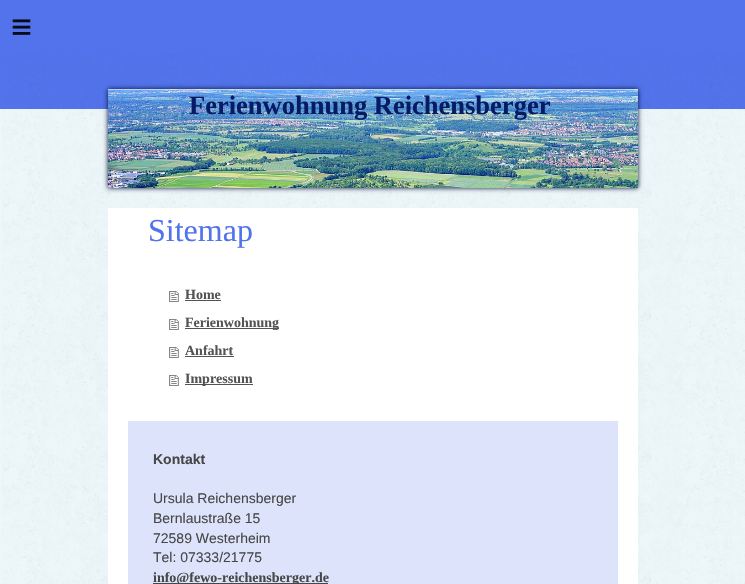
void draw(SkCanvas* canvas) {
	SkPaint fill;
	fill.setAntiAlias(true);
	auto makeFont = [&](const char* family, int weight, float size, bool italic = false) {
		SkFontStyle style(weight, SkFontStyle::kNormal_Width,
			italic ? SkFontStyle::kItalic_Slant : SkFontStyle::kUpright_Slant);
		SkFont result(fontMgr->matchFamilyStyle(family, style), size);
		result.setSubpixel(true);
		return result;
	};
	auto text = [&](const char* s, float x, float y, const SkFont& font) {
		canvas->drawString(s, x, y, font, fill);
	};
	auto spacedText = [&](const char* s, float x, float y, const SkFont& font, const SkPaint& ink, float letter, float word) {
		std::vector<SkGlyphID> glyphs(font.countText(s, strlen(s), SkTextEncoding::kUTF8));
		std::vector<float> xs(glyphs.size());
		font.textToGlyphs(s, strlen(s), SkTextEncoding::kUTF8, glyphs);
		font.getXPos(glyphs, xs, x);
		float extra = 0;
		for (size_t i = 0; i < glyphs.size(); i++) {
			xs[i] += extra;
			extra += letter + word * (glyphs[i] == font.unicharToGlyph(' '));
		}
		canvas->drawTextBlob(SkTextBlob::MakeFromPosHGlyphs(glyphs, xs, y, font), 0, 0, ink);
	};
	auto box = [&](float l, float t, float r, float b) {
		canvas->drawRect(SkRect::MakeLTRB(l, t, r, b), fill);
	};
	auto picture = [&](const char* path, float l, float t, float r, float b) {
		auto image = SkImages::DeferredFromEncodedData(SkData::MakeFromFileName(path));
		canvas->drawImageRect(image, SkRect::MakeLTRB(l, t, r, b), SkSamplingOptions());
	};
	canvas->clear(0xFFEDF7F9);
	picture("image0.png", 2, 109, 745, 584);
	fill.setColor(0xFF5273EB);
	box(0, 0, 745, 109);
	picture("image1.png", 5, 54, 745, 109);
	fill.setColor(0xFF061138);
	fill.setMaskFilter(SkMaskFilter::MakeBlur(kNormal_SkBlurStyle, 2.5f));
	canvas->drawRect(SkRect::MakeLTRB(108, 89, 638, 188), fill);
	fill.setMaskFilter(nullptr);
	picture("image2.png", 108, 89, 638, 188);
	fill.setColor(0x80FFFFFF);
	box(108, 89, 638, 90);
	fill.setColor(0xFFFFFFFF);
	box(108, 208, 638, 584);
	picture("image3.png", 169, 291, 179, 302);
	fill.setColor(0xFF535353);
	box(185, 300, 221, 301);
	picture("image3.png", 169, 319, 179, 330);
	box(185, 328, 279, 329);
	picture("image3.png", 169, 347, 179, 358);
	box(185, 356, 234, 357);
	picture("image3.png", 169, 375, 179, 386);
	box(185, 384, 253, 385);
	fill.setColor(0xFFDDE3FB);
	box(128, 421, 618, 584);
	fill.setColor(0xFF474747);
	box(153, 583, 328, 584);
	auto font1 = makeFont("Liberation Sans", 400, 36);
	fill.setColor(0xFF080C18);
	spacedText("≡", 11, 39, font1, fill, 10, 0);
	auto font2 = makeFont("Liberation Serif", 700, 26.5f);
	fill.setColor(0xFF061A65);
	text("Ferienwohnung Reichensberger", 189, 114, font2);
	auto font3 = makeFont("Liberation Serif", 400, 32);
	fill.setColor(0xFF5273EB);
	text("Sitemap", 148, 241, font3);
	auto font4 = makeFont("Liberation Serif", 700, 14);
	fill.setColor(0xFF535353);
	text("Home", 185, 299, font4);
	text("Ferienwohnung", 185, 327, font4);
	text("Anfahrt", 185, 355, font4);
	text("Impressum", 185, 383, font4);
	auto font5 = makeFont("Liberation Sans", 700, 14);
	fill.setColor(0xFF474747);
	text("Kontakt", 153, 464, font5);
	auto font6 = makeFont("Liberation Sans", 400, 14);
	text("Ursula Reichensberger", 153, 503, font6);
	text("Bernlaustraße 15", 153, 523, font6);
	text("72589 Westerheim", 153, 543, font6);
	text("Tel: 07333/21775", 153, 562, font6);
	text("info@fewo-reichensberger.de", 153, 582, font4);
}
